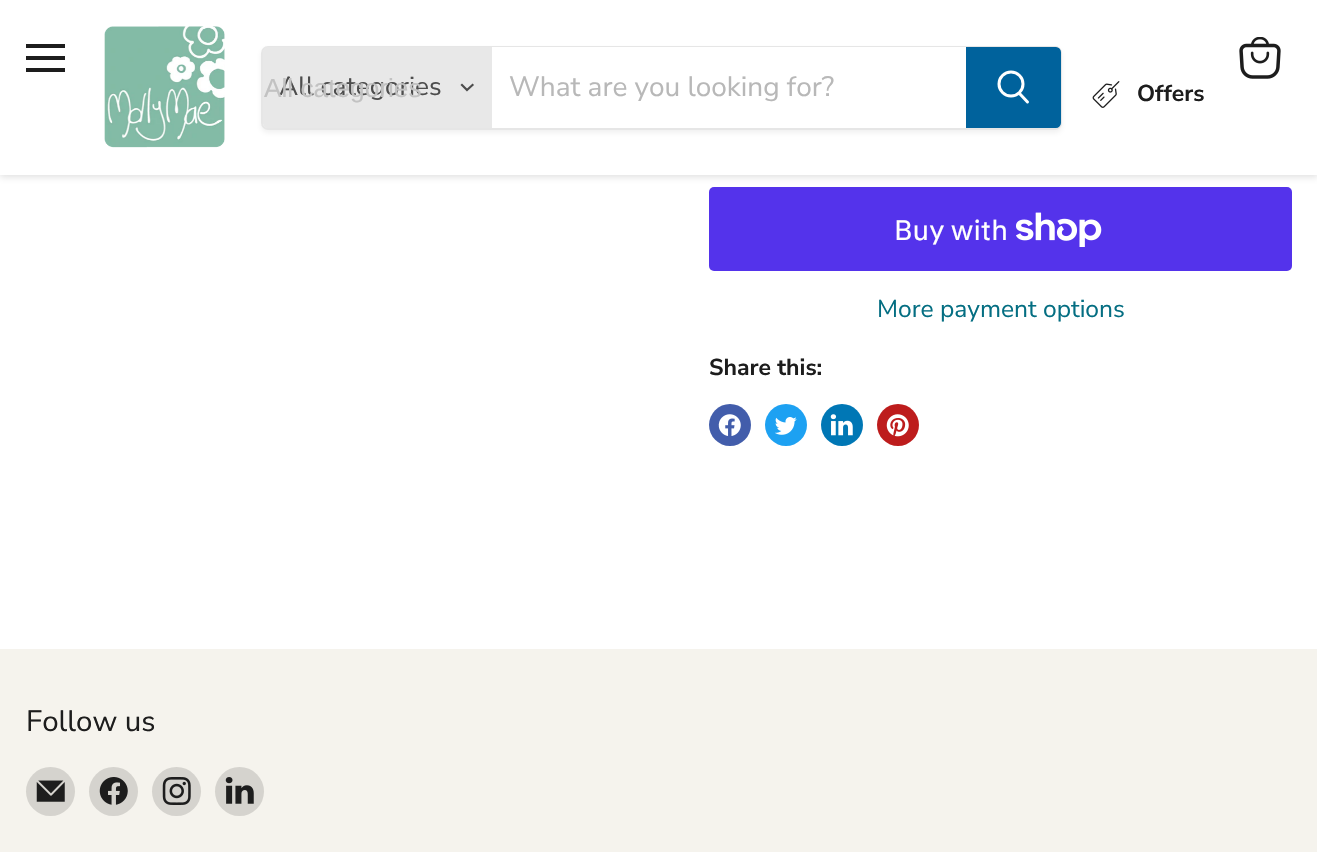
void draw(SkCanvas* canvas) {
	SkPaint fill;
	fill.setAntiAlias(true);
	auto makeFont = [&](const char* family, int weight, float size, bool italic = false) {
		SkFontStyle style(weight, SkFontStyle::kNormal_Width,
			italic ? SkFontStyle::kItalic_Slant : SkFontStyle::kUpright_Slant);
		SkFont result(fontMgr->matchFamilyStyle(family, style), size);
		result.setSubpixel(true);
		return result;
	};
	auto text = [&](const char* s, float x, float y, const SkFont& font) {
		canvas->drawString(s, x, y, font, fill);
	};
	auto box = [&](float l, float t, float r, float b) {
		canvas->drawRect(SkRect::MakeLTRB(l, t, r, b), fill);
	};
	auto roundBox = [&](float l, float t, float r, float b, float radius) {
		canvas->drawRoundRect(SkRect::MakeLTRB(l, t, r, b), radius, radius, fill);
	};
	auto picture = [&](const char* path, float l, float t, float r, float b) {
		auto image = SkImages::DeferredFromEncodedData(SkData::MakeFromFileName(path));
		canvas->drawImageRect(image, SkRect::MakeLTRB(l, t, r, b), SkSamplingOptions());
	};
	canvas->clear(0xFFFFFFFF);
	fill.setColor(0xFF5433EB);
	roundBox(709, 187, 1292, 271, 5);
	fill.setColor(0x40808080);
	fill.setMaskFilter(SkMaskFilter::MakeBlur(kNormal_SkBlurStyle, 3.5f));
	canvas->drawRect(SkRect::MakeLTRB(0, 2, 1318, 177), fill);
	fill.setMaskFilter(nullptr);
	fill.setColor(0xFFFFFFFF);
	box(0, 0, 1317, 175);
	fill.setColor(0xFF1D1D1D);
	box(26, 44, 65, 48);
	box(26, 56, 65, 60);
	box(26, 68, 65, 72);
	picture("image0.png", 1239, 37, 1281, 79);
	picture("image1.png", 104, 26, 225, 148);
	canvas->save();
	canvas->clipPath(SkPathBuilder(SkPathFillType::kEvenOdd).moveTo(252, 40).lineTo(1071, 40).lineTo(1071, 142).lineTo(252, 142).close().moveTo(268, 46).lineTo(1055, 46).cubicTo(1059, 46, 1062, 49, 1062, 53).lineTo(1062, 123).cubicTo(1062, 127, 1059, 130, 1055, 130).lineTo(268, 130).cubicTo(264, 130, 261, 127, 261, 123).lineTo(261, 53).cubicTo(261, 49, 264, 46, 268, 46).close().detach(), true);
	fill.setColor(0x1C808080);
	fill.setMaskFilter(SkMaskFilter::MakeBlur(kNormal_SkBlurStyle, 2.5f));
	canvas->drawRoundRect(SkRect::MakeLTRB(261, 49, 1062, 133), 7, 7, fill);
	fill.setMaskFilter(nullptr);
	canvas->restore();
	fill.setStyle(SkPaint::kStroke_Style);
	fill.setStrokeWidth(2);
	fill.setColor(0x33808080);
	canvas->drawRoundRect(SkRect::MakeLTRB(262, 47, 1061, 129), 6, 6, fill);
	fill.setStyle(SkPaint::kFill_Style);
	fill.setColor(0xFFE8E8E8);
	canvas->drawPath(SkPathBuilder().moveTo(268, 47).lineTo(492, 47).lineTo(492, 128).lineTo(268, 128).cubicTo(265, 128, 263, 126, 263, 123).lineTo(263, 52).cubicTo(263, 49, 265, 47, 268, 47).close().detach(), fill);
	fill.setStyle(SkPaint::kStroke_Style);
	fill.setStrokeWidth(2.2f);
	fill.setStrokeCap(SkPaint::kSquare_Cap);
	fill.setColor(0xFF4D4D4D);
	canvas->drawPath(SkPathBuilder().moveTo(467, 90).lineTo(472.5f, 85).moveTo(467, 90).lineTo(462, 85).detach(), fill);
	fill.setStyle(SkPaint::kFill_Style);
	fill.setColor(0xFFFFFFFF);
	box(492, 47, 966, 48);
	fill.setColor(0xFF00629C);
	canvas->drawPath(SkPathBuilder().moveTo(967, 48).lineTo(1056, 48).cubicTo(1058, 48, 1060, 50, 1060, 52).lineTo(1060, 123).cubicTo(1060, 125, 1058, 127, 1056, 127).lineTo(967, 127).close().detach(), fill);
	fill.setStyle(SkPaint::kStroke_Style);
	fill.setStrokeWidth(2);
	fill.setStrokeCap(SkPaint::kButt_Cap);
	canvas->drawPath(SkPathBuilder().moveTo(967, 48).lineTo(1056, 48).cubicTo(1058, 48, 1060, 50, 1060, 52).lineTo(1060, 123).cubicTo(1060, 125, 1058, 127, 1056, 127).lineTo(967, 127).close().detach(), fill);
	fill.setStrokeWidth(3);
	fill.setStrokeCap(SkPaint::kRound_Cap);
	fill.setColor(0xFFFFFFFF);
	canvas->drawPath(SkPathBuilder().moveTo(1027.5f, 102).lineTo(1019.5f, 93.5f).detach(), fill);
	fill.setStrokeCap(SkPaint::kButt_Cap);
	canvas->drawCircle(1011, 84, 12, fill);
	picture("image2.png", 1092, 81, 1120, 108);
	picture("image3.png", 1016, 212, 1102, 247);
	fill.setStyle(SkPaint::kFill_Style);
	fill.setColor(0xFF425DAB);
	canvas->drawCircle(730, 425, 21, fill);
	picture("image4.png", 718, 414, 741, 436);
	fill.setColor(0xFF1DA1F2);
	canvas->drawCircle(786, 425, 21, fill);
	picture("image5.png", 775, 417, 797, 435);
	fill.setColor(0xFF0077B5);
	canvas->drawCircle(842, 425, 21, fill);
	picture("image6.png", 830, 414, 853, 436);
	fill.setColor(0xFFBD1C1C);
	canvas->drawCircle(898, 425, 21, fill);
	picture("image7.png", 886, 414, 909, 437);
	fill.setColor(0xFFF5F3ED);
	box(0, 649, 1317, 852);
	fill.setColor(0xFFD5D3CE);
	canvas->drawCircle(50.5f, 791.5f, 24.5f, fill);
	picture("image8.png", 36, 780, 65, 802);
	canvas->drawCircle(113.5f, 791.5f, 24.5f, fill);
	picture("image9.png", 99, 777, 128, 805);
	canvas->drawCircle(176.5f, 791.5f, 24.5f, fill);
	picture("image10.png", 162, 777, 191, 805);
	canvas->drawCircle(239.5f, 791.5f, 24.5f, fill);
	picture("image11.png", 225, 777, 254, 804);
	auto font1 = makeFont("Nunito Sans", 400, 26.25f);
	fill.setColor(0xFF4D4D4D);
	text("All categories", 279, 95, font1);
	auto font2 = makeFont("Liberation Sans", 400, 26.25f);
	fill.setColor(0xFFC2C2C2);
	text("All categories", 264, 97, font2);
	auto font3 = makeFont("Nunito Sans", 400, 28);
	fill.setColor(0xFFB8B8B8);
	text("What are you looking for?", 509, 96, font3);
	auto font4 = makeFont("Nunito Sans", 700, 23);
	fill.setColor(0xFF1D1D1D);
	text("Offers", 1137, 101, font4);
	auto font5 = makeFont("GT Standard", 400, 28);
	fill.setColor(0xFFFFFFFF);
	text("Buy with", 894, 240, font5);
	auto font6 = makeFont("Nunito Sans", 400, 24.6f);
	fill.setColor(0xFF046E82);
	text("More payment options", 877, 317, font6);
	fill.setColor(0xFF1D1D1D);
	text("Share this:", 709, 375, font4);
	auto font7 = makeFont("Nunito Sans", 400, 29.5f);
	text("Follow us", 26, 731, font7);
}
